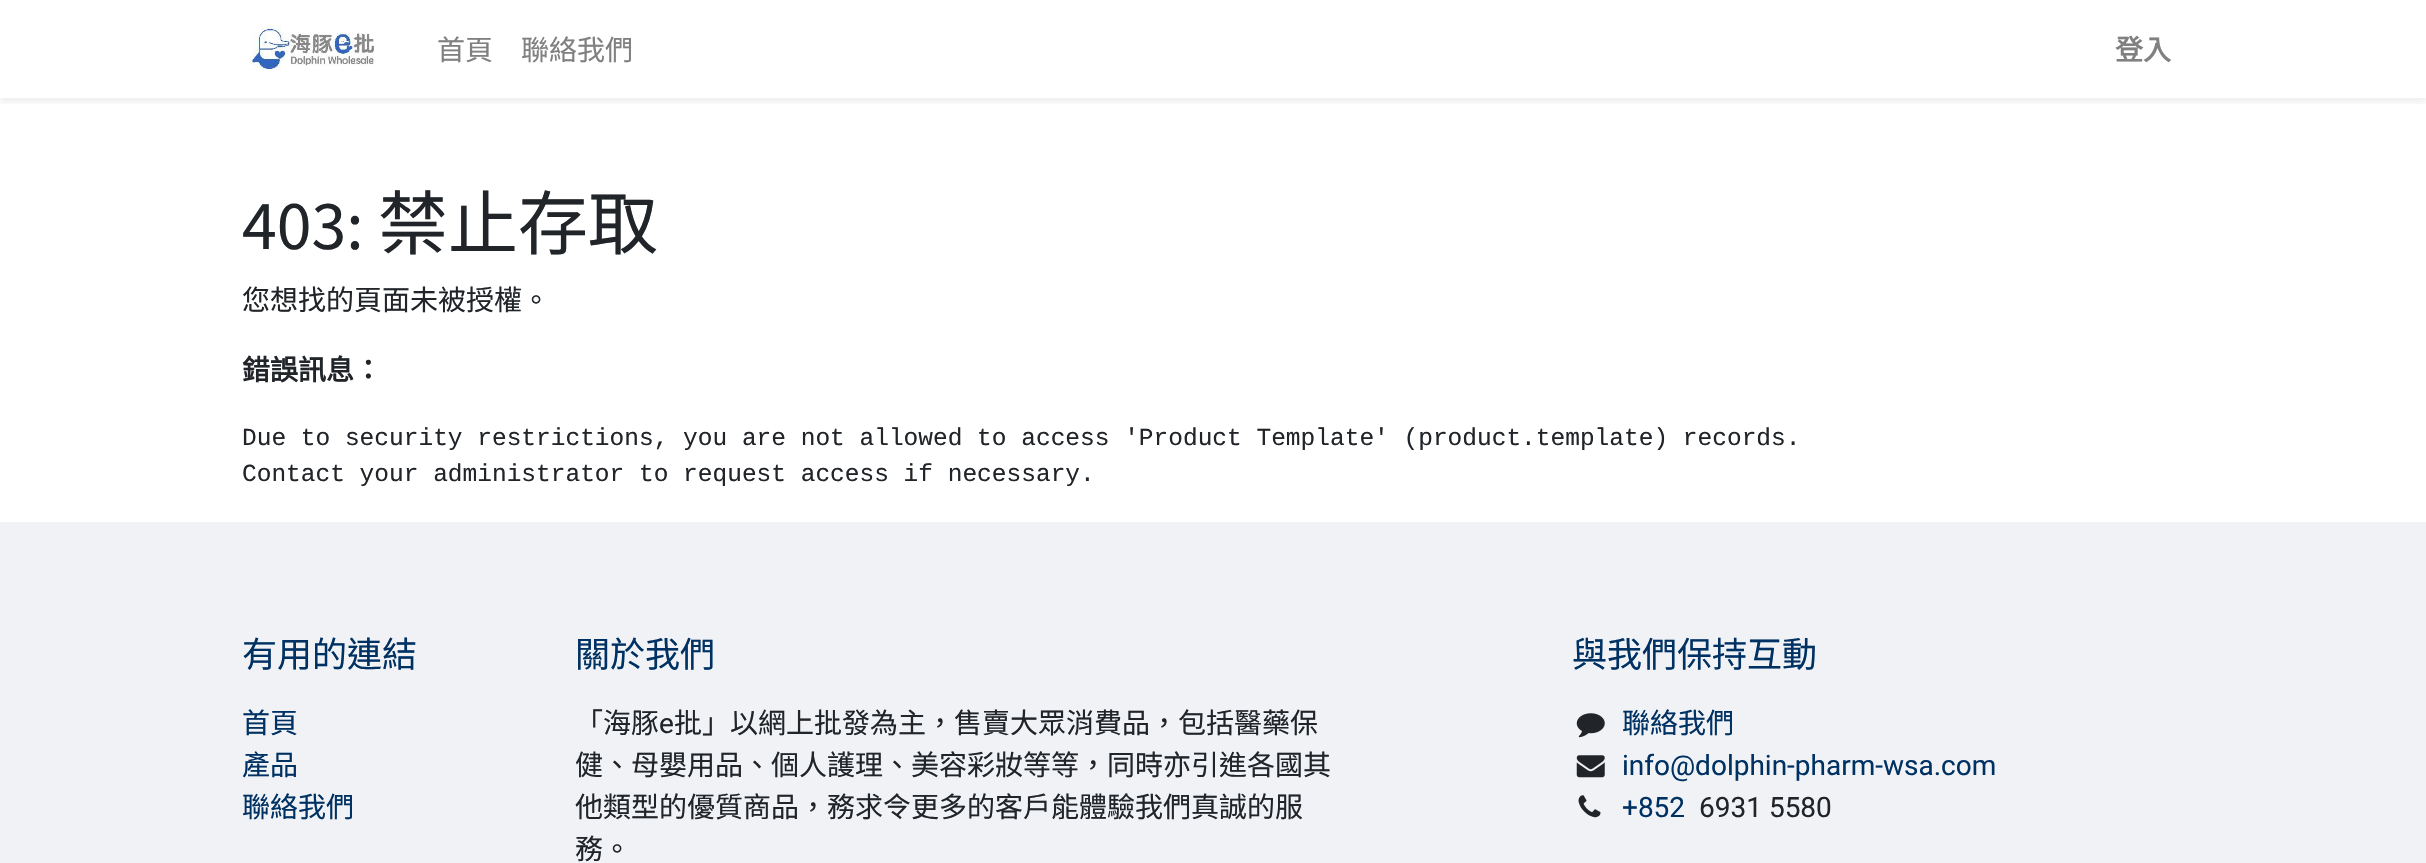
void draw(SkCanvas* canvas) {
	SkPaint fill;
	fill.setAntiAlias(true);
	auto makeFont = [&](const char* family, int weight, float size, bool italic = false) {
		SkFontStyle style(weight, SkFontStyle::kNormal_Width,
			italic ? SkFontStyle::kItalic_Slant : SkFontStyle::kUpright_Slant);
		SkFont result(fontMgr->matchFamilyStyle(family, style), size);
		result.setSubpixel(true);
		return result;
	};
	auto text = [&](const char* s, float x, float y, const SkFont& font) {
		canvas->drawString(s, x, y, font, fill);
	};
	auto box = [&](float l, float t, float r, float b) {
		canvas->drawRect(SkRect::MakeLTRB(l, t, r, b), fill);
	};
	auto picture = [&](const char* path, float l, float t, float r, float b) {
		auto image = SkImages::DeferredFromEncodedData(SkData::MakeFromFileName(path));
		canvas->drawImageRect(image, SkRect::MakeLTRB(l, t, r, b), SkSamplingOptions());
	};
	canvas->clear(0xFFFFFFFF);
	canvas->save();
	canvas->clipRect(SkRect::MakeLTRB(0, 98, 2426, 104));
	fill.setColor(0x12000000);
	fill.setMaskFilter(SkMaskFilter::MakeBlur(kNormal_SkBlurStyle, 3.5f));
	canvas->drawRect(SkRect::MakeLTRB(0, 4, 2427, 102), fill);
	fill.setMaskFilter(nullptr);
	canvas->restore();
	picture("image0.png", 249, 23, 374, 70);
	fill.setColor(0xFFF0F2F5);
	box(0, 522, 2426, 863);
	picture("image1.png", 1576, 713, 1605, 738);
	picture("image2.png", 1576, 755, 1605, 778);
	picture("image3.png", 1578, 795, 1601, 818);
	auto font1 = makeFont("Noto Sans CJK TC", 400, 28);
	fill.setColor(0xFF808080);
	text("首頁", 437, 60, font1);
	text("聯絡我們", 521, 60, font1);
	auto font2 = makeFont("Noto Sans CJK TC", 700, 28);
	text("登入", 2115, 60, font2);
	auto font3 = makeFont("Source Sans Pro", 400, 70);
	fill.setColor(0xFF212529);
	text("403:", 242, 249, font3);
	auto font4 = makeFont("Noto Sans CJK TC", 400, 70);
	text("禁止存取", 378, 249, font4);
	text("您想找的頁面未被授權。", 242, 310, font1);
	text("錯誤訊息：", 242, 380, font2);
	auto font5 = makeFont("Liberation Mono", 400, 24.5f);
	text("Due to security restrictions, you are not allowed to access 'Product Template' (product.template) records.", 242, 445, font5);
	text("Contact your administrator to request access if necessary.", 242, 481, font5);
	auto font6 = makeFont("Noto Sans CJK TC", 400, 35);
	fill.setColor(0xFF003163);
	text("有用的連結", 242, 667, font6);
	text("首頁", 242, 733, font1);
	text("產品", 242, 775, font1);
	text("聯絡我們", 242, 817, font1);
	text("關於我們", 575, 667, font6);
	fill.setColor(0xFF212529);
	text("「海豚", 575, 733, font1);
	auto font7 = makeFont("Roboto", 400, 28);
	text("e", 659, 733, font7);
	text("批」以網上批發為主，售賣大眾消費品，包括醫藥保", 674, 733, font1);
	text("健、母嬰用品、個人護理、美容彩妝等等，同時亦引進各國其", 575, 775, font1);
	text("他類型的優質商品，務求令更多的客戶能體驗我們真誠的服", 575, 817, font1);
	text("務。", 575, 859, font1);
	fill.setColor(0xFF003163);
	text("與我們保持互動", 1572, 667, font6);
	text("聯絡我們", 1622, 733, font1);
	text("info@dolphin-pharm-wsa.com", 1622, 775, font7);
	text("+852", 1622, 817, font7);
	fill.setColor(0xFF212529);
	text("6931 5580", 1699, 817, font7);
}
